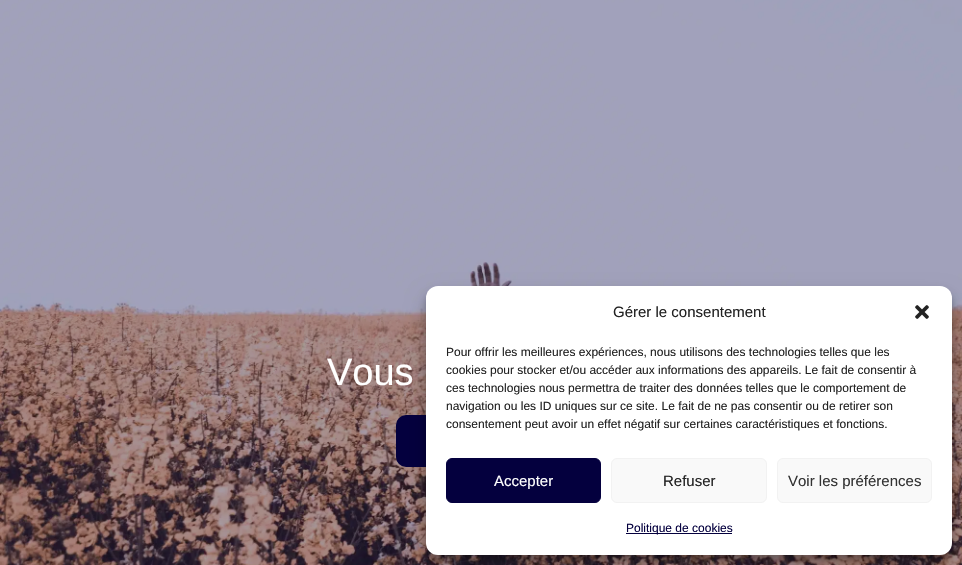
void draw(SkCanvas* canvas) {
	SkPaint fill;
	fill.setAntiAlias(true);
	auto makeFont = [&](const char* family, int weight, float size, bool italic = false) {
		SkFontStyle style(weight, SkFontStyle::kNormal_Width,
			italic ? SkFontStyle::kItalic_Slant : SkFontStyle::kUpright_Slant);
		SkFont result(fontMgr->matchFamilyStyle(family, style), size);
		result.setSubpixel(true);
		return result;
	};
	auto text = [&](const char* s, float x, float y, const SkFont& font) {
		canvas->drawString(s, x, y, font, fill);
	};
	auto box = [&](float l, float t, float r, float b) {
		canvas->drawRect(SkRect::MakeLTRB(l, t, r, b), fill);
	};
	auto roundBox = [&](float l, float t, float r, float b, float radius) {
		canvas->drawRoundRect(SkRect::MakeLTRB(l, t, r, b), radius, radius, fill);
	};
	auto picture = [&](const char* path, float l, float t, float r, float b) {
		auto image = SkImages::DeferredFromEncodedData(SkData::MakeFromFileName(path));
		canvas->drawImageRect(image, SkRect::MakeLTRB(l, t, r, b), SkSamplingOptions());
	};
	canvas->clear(0xFFFFFFFF);
	picture("image0.png", 0, 0, 962, 565);
	fill.setColor(0xFF04003E);
	roundBox(396, 415, 566, 467, 10);
	fill.setColor(0x3B000000);
	fill.setMaskFilter(SkMaskFilter::MakeBlur(kNormal_SkBlurStyle, 3));
	canvas->drawRoundRect(SkRect::MakeLTRB(426, 292, 952, 561), 12, 12, fill);
	fill.setMaskFilter(nullptr);
	fill.setColor(0x30000000);
	fill.setMaskFilter(SkMaskFilter::MakeBlur(kNormal_SkBlurStyle, 10));
	canvas->drawRoundRect(SkRect::MakeLTRB(426, 296, 952, 565), 12, 12, fill);
	fill.setMaskFilter(nullptr);
	fill.setColor(0xFFFFFFFF);
	roundBox(426, 286, 952, 555, 12);
	picture("image1.png", 915, 305, 929, 319);
	fill.setColor(0xFF04003E);
	canvas->drawRoundRect(SkRect::MakeLTRB(446.5f, 458.5f, 600.5f, 502.5f), 5.5f, 5.5f, fill);
	fill.setStyle(SkPaint::kStroke_Style);
	fill.setStrokeWidth(1);
	canvas->drawRoundRect(SkRect::MakeLTRB(446.5f, 458.5f, 600.5f, 502.5f), 5.5f, 5.5f, fill);
	fill.setStyle(SkPaint::kFill_Style);
	fill.setColor(0xFFF9F9F9);
	canvas->drawRoundRect(SkRect::MakeLTRB(611.5f, 458.5f, 766.5f, 502.5f), 5.5f, 5.5f, fill);
	fill.setStyle(SkPaint::kStroke_Style);
	fill.setColor(0xFFF2F2F2);
	canvas->drawRoundRect(SkRect::MakeLTRB(611.5f, 458.5f, 766.5f, 502.5f), 5.5f, 5.5f, fill);
	fill.setStyle(SkPaint::kFill_Style);
	fill.setColor(0xFFF9F9F9);
	canvas->drawRoundRect(SkRect::MakeLTRB(777.5f, 458.5f, 931.5f, 502.5f), 5.5f, 5.5f, fill);
	fill.setStyle(SkPaint::kStroke_Style);
	fill.setColor(0xFFF2F2F2);
	canvas->drawRoundRect(SkRect::MakeLTRB(777.5f, 458.5f, 931.5f, 502.5f), 5.5f, 5.5f, fill);
	fill.setStyle(SkPaint::kFill_Style);
	fill.setColor(0xFF04003E);
	box(626, 533, 732, 534);
	auto font1 = makeFont("Liberation Sans", 400, 38);
	fill.setColor(0xFFFFFFFF);
	text("Vous", 327, 385, font1);
	auto font2 = makeFont("Liberation Sans", 400, 15);
	fill.setColor(0xFF222222);
	text("Gérer le consentement", 613, 317, font2);
	auto font3 = makeFont("Liberation Sans", 400, 12);
	text("Pour offrir les meilleures expériences, nous utilisons des technologies telles que les", 446, 356, font3);
	text("cookies pour stocker et/ou accéder aux informations des appareils. Le fait de consentir à", 446, 374, font3);
	text("ces technologies nous permettra de traiter des données telles que le comportement de", 446, 392, font3);
	text("navigation ou les ID uniques sur ce site. Le fait de ne pas consentir ou de retirer son", 446, 410, font3);
	text("consentement peut avoir un effet négatif sur certaines caractéristiques et fonctions.", 446, 428, font3);
	fill.setColor(0xFFFFFFFF);
	text("Accepter", 494, 486, font2);
	fill.setColor(0xFF222222);
	text("Refuser", 663, 486, font2);
	fill.setColor(0xFF333333);
	text("Voir les préférences", 788, 486, font2);
	fill.setColor(0xFF04003E);
	text("Politique de cookies", 626, 532, font3);
}
